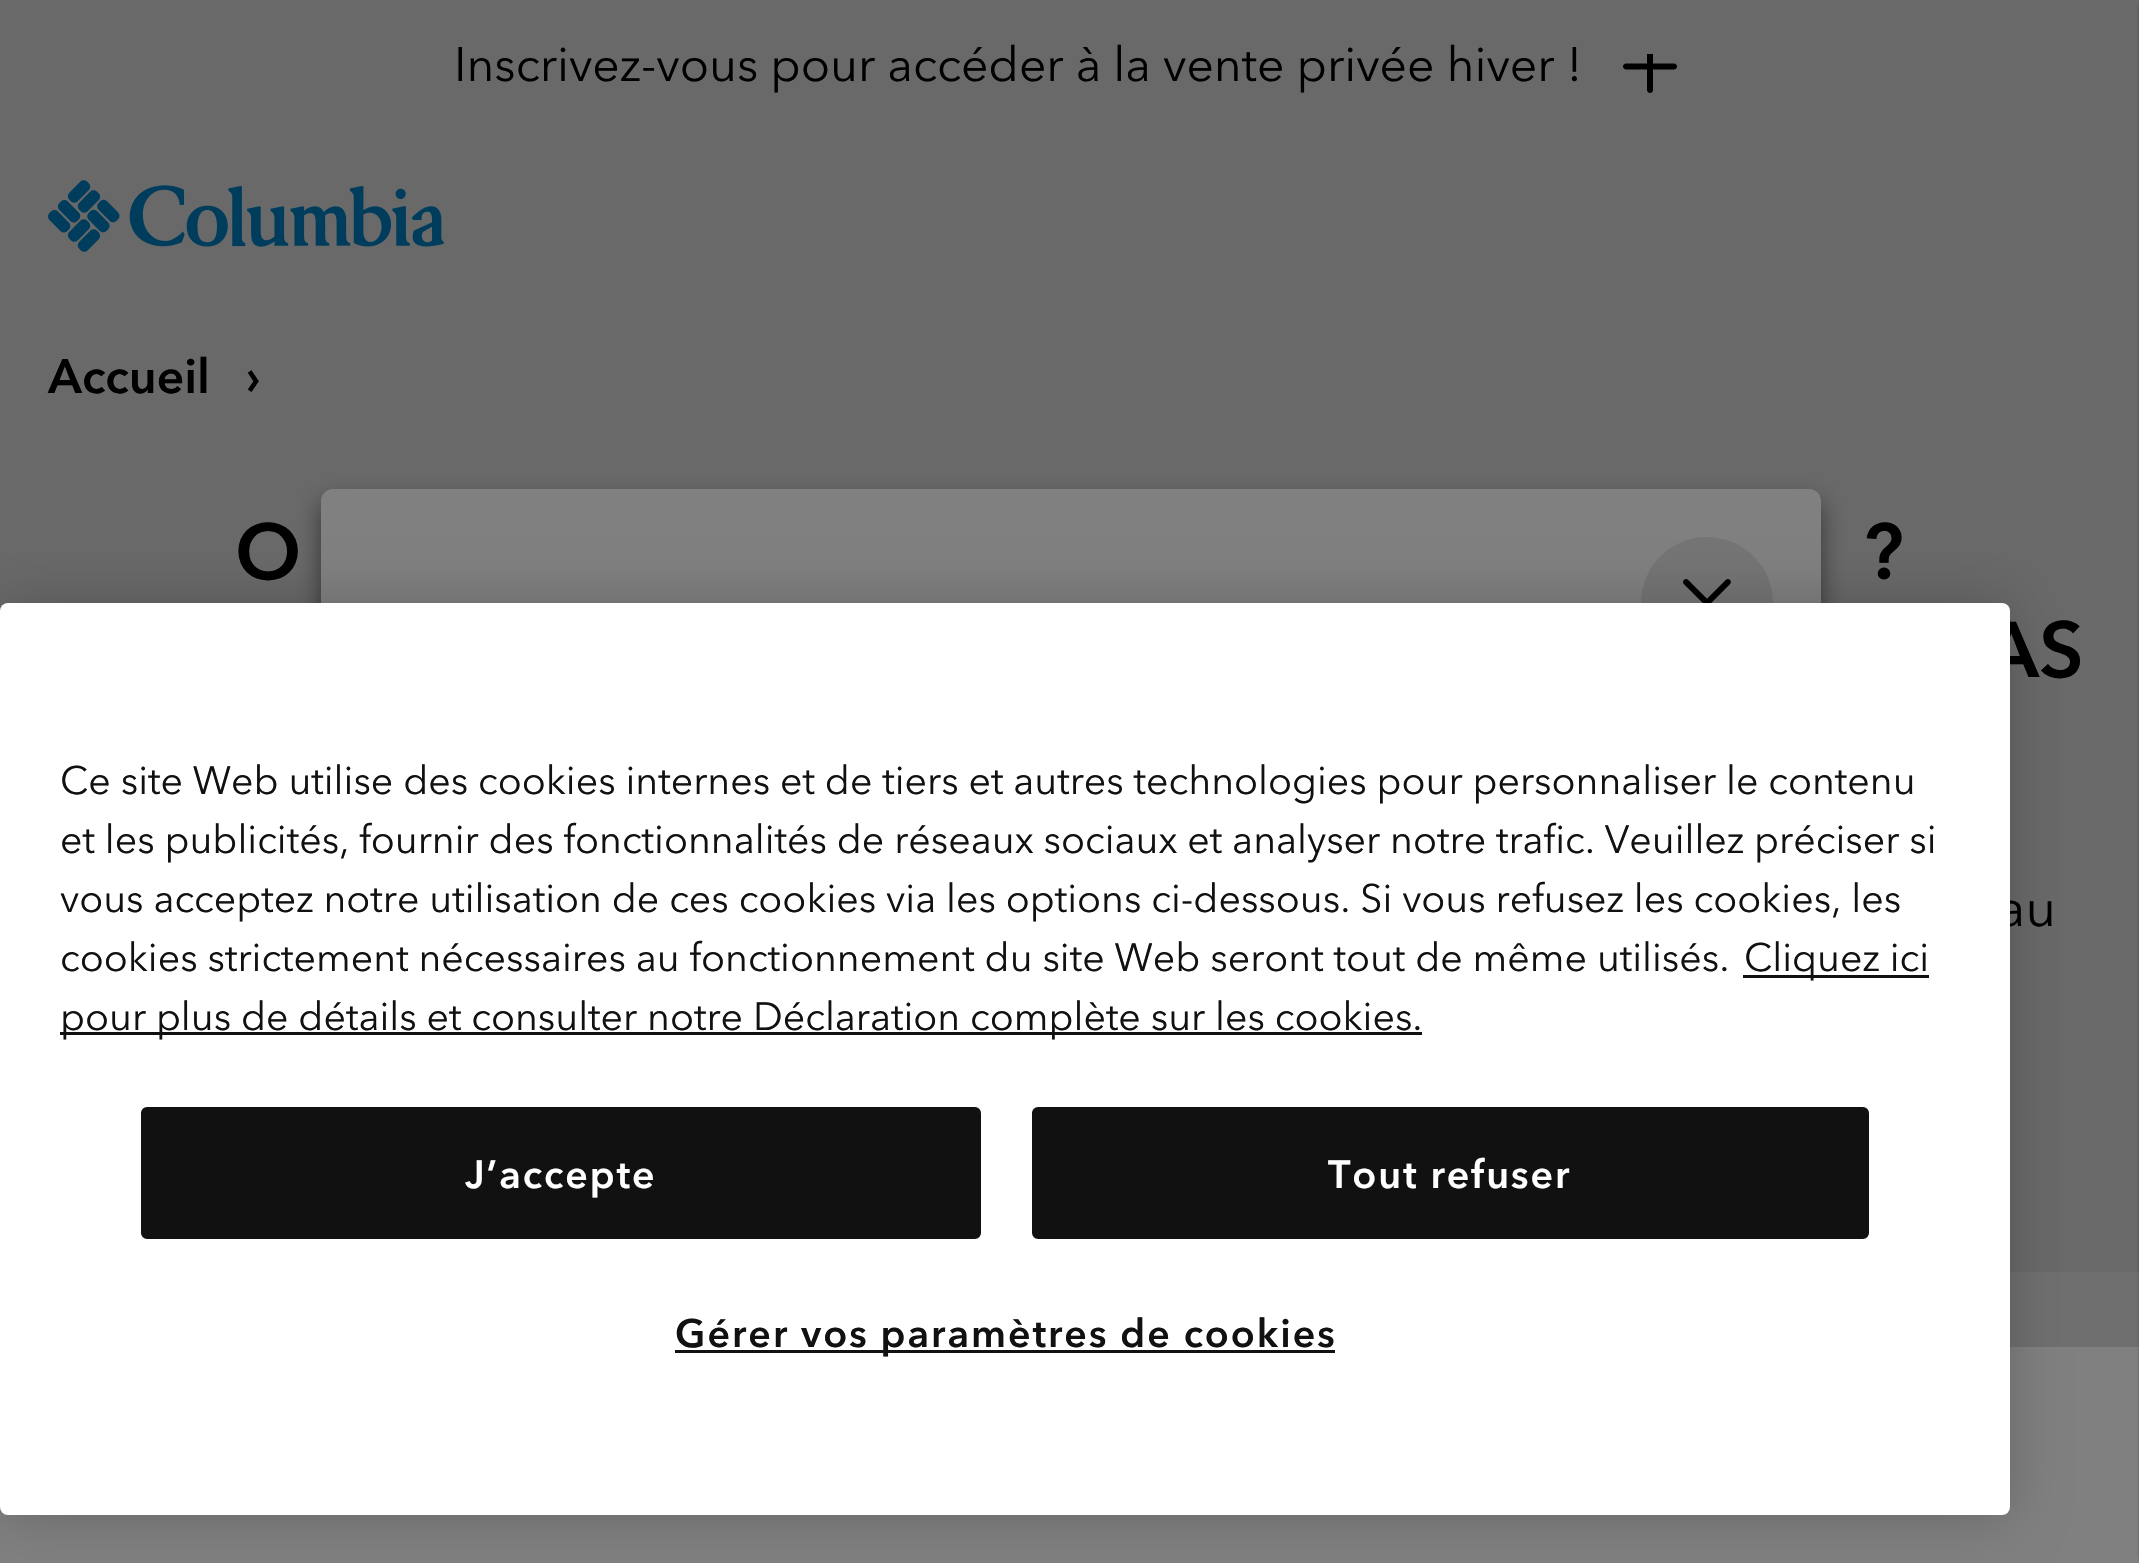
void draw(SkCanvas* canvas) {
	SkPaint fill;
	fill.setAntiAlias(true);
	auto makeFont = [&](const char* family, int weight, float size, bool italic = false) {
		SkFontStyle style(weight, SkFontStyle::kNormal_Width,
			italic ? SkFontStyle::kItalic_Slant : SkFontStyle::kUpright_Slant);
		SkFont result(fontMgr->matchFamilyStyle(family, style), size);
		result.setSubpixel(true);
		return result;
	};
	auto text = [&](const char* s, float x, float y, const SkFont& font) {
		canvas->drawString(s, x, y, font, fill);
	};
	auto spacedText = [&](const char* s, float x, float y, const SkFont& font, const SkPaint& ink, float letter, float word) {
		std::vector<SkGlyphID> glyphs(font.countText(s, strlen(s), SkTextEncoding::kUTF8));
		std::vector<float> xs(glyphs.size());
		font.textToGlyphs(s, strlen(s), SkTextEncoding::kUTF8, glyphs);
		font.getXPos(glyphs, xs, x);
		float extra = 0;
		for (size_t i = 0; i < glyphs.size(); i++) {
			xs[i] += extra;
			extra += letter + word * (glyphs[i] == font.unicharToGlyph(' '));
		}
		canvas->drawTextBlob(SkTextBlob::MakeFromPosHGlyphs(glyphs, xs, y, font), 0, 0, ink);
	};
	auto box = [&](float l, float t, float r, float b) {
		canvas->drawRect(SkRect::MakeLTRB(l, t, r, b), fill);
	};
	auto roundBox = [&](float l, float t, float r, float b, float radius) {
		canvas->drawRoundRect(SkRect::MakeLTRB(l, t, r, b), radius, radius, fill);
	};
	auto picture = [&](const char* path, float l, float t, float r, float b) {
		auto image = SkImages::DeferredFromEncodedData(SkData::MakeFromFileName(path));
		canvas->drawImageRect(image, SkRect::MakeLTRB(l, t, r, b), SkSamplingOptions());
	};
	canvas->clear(0xFF696969);
	fill.setColor(0xFF808080);
	box(0, 1347, 2139, 1563);
	fill.setColor(0xFF6F6F6F);
	box(2010, 1272, 2139, 1347);
	fill.setColor(0x4D0A0B0B);
	fill.setMaskFilter(SkMaskFilter::MakeBlur(kNormal_SkBlurStyle, 1.5f));
	canvas->drawRoundRect(SkRect::MakeLTRB(2139, 0, 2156, 1563), 12, 12, fill);
	fill.setMaskFilter(nullptr);
	picture("image0.png", 48, 180, 444, 252);
	picture("image1.png", 1623, 54, 1677, 93);
	fill.setColor(0x80000000);
	fill.setMaskFilter(SkMaskFilter::MakeBlur(kNormal_SkBlurStyle, 12));
	canvas->drawRoundRect(SkRect::MakeLTRB(321, 501, 1821, 1341), 12, 12, fill);
	fill.setMaskFilter(nullptr);
	fill.setColor(0xFF808080);
	roundBox(321, 489, 1821, 1329, 12);
	fill.setColor(0xFF747474);
	canvas->drawCircle(1707, 603, 66, fill);
	picture("image2.png", 1683, 579, 1731, 603);
	fill.setColor(0x33000000);
	fill.setMaskFilter(SkMaskFilter::MakeBlur(kNormal_SkBlurStyle, 27));
	canvas->drawRoundRect(SkRect::MakeLTRB(0, 603, 2010, 1515), 8, 8, fill);
	fill.setMaskFilter(nullptr);
	auto font1 = makeFont("Avenir Next", 400, 48);
	fill.setColor(0xFF000000);
	text("Inscrivez-vous pour accéder à la vente privée hiver !", 454, 81, font1);
	auto font2 = makeFont("Avenir Next", 600, 48);
	text("Accueil", 48, 393, font2);
	text("›", 246, 393, font2);
	auto font3 = makeFont("Avenir Next", 600, 78);
	text("O", 235, 579, font3);
	text("?", 1863, 579, font3);
	text("AS", 1984, 677, font3);
	auto font4 = makeFont("Avenir Next", 400, 53);
	text("au", 1997, 926, font4);
	fill.setColor(0xFFFFFFFF);
	roundBox(0, 603, 2010, 1515, 8);
	auto font5 = makeFont("Avenir Next", 400, 39.35f);
	fill.setColor(0xFF111111);
	text("Ce site Web utilise des cookies internes et de tiers et autres technologies pour personnaliser le contenu", 60, 794, font5);
	text("et les publicités, fournir des fonctionnalités de réseaux sociaux et analyser notre trafic. Veuillez préciser si", 60, 853, font5);
	text("vous acceptez notre utilisation de ces cookies via les options ci-dessous. Si vous refusez les cookies, les", 60, 912, font5);
	text("cookies strictement nécessaires au fonctionnement du site Web seront tout de même utilisés.", 60, 971, font5);
	box(1743, 975, 1929, 978);
	text("Cliquez ici", 1744, 971, font5);
	box(60, 1032, 1422, 1035);
	text("pour plus de détails et consulter notre Déclaration complète sur les cookies.", 60, 1030, font5);
	canvas->drawRoundRect(SkRect::MakeLTRB(142.5f, 1108.5f, 979.5f, 1237.5f), 4.5f, 4.5f, fill);
	fill.setStyle(SkPaint::kStroke_Style);
	fill.setStrokeWidth(3);
	canvas->drawRoundRect(SkRect::MakeLTRB(142.5f, 1108.5f, 979.5f, 1237.5f), 4.5f, 4.5f, fill);
	auto font6 = makeFont("Avenir Next", 600, 39.35f);
	fill.setStyle(SkPaint::kFill_Style);
	fill.setColor(0xFFFFFFFF);
	spacedText("J’accepte", 465, 1188, font6, fill, 2, 0);
	fill.setColor(0xFF111111);
	canvas->drawRoundRect(SkRect::MakeLTRB(1033.5f, 1108.5f, 1867.5f, 1237.5f), 4.5f, 4.5f, fill);
	fill.setStyle(SkPaint::kStroke_Style);
	canvas->drawRoundRect(SkRect::MakeLTRB(1033.5f, 1108.5f, 1867.5f, 1237.5f), 4.5f, 4.5f, fill);
	fill.setStyle(SkPaint::kFill_Style);
	fill.setColor(0xFFFFFFFF);
	spacedText("Tout refuser", 1328, 1188, font6, fill, 2, 0);
	fill.setColor(0xFF111111);
	box(675, 1350, 1335, 1353);
	spacedText("Gérer vos paramètres de cookies", 675, 1347, font6, fill, 2, 0);
}
